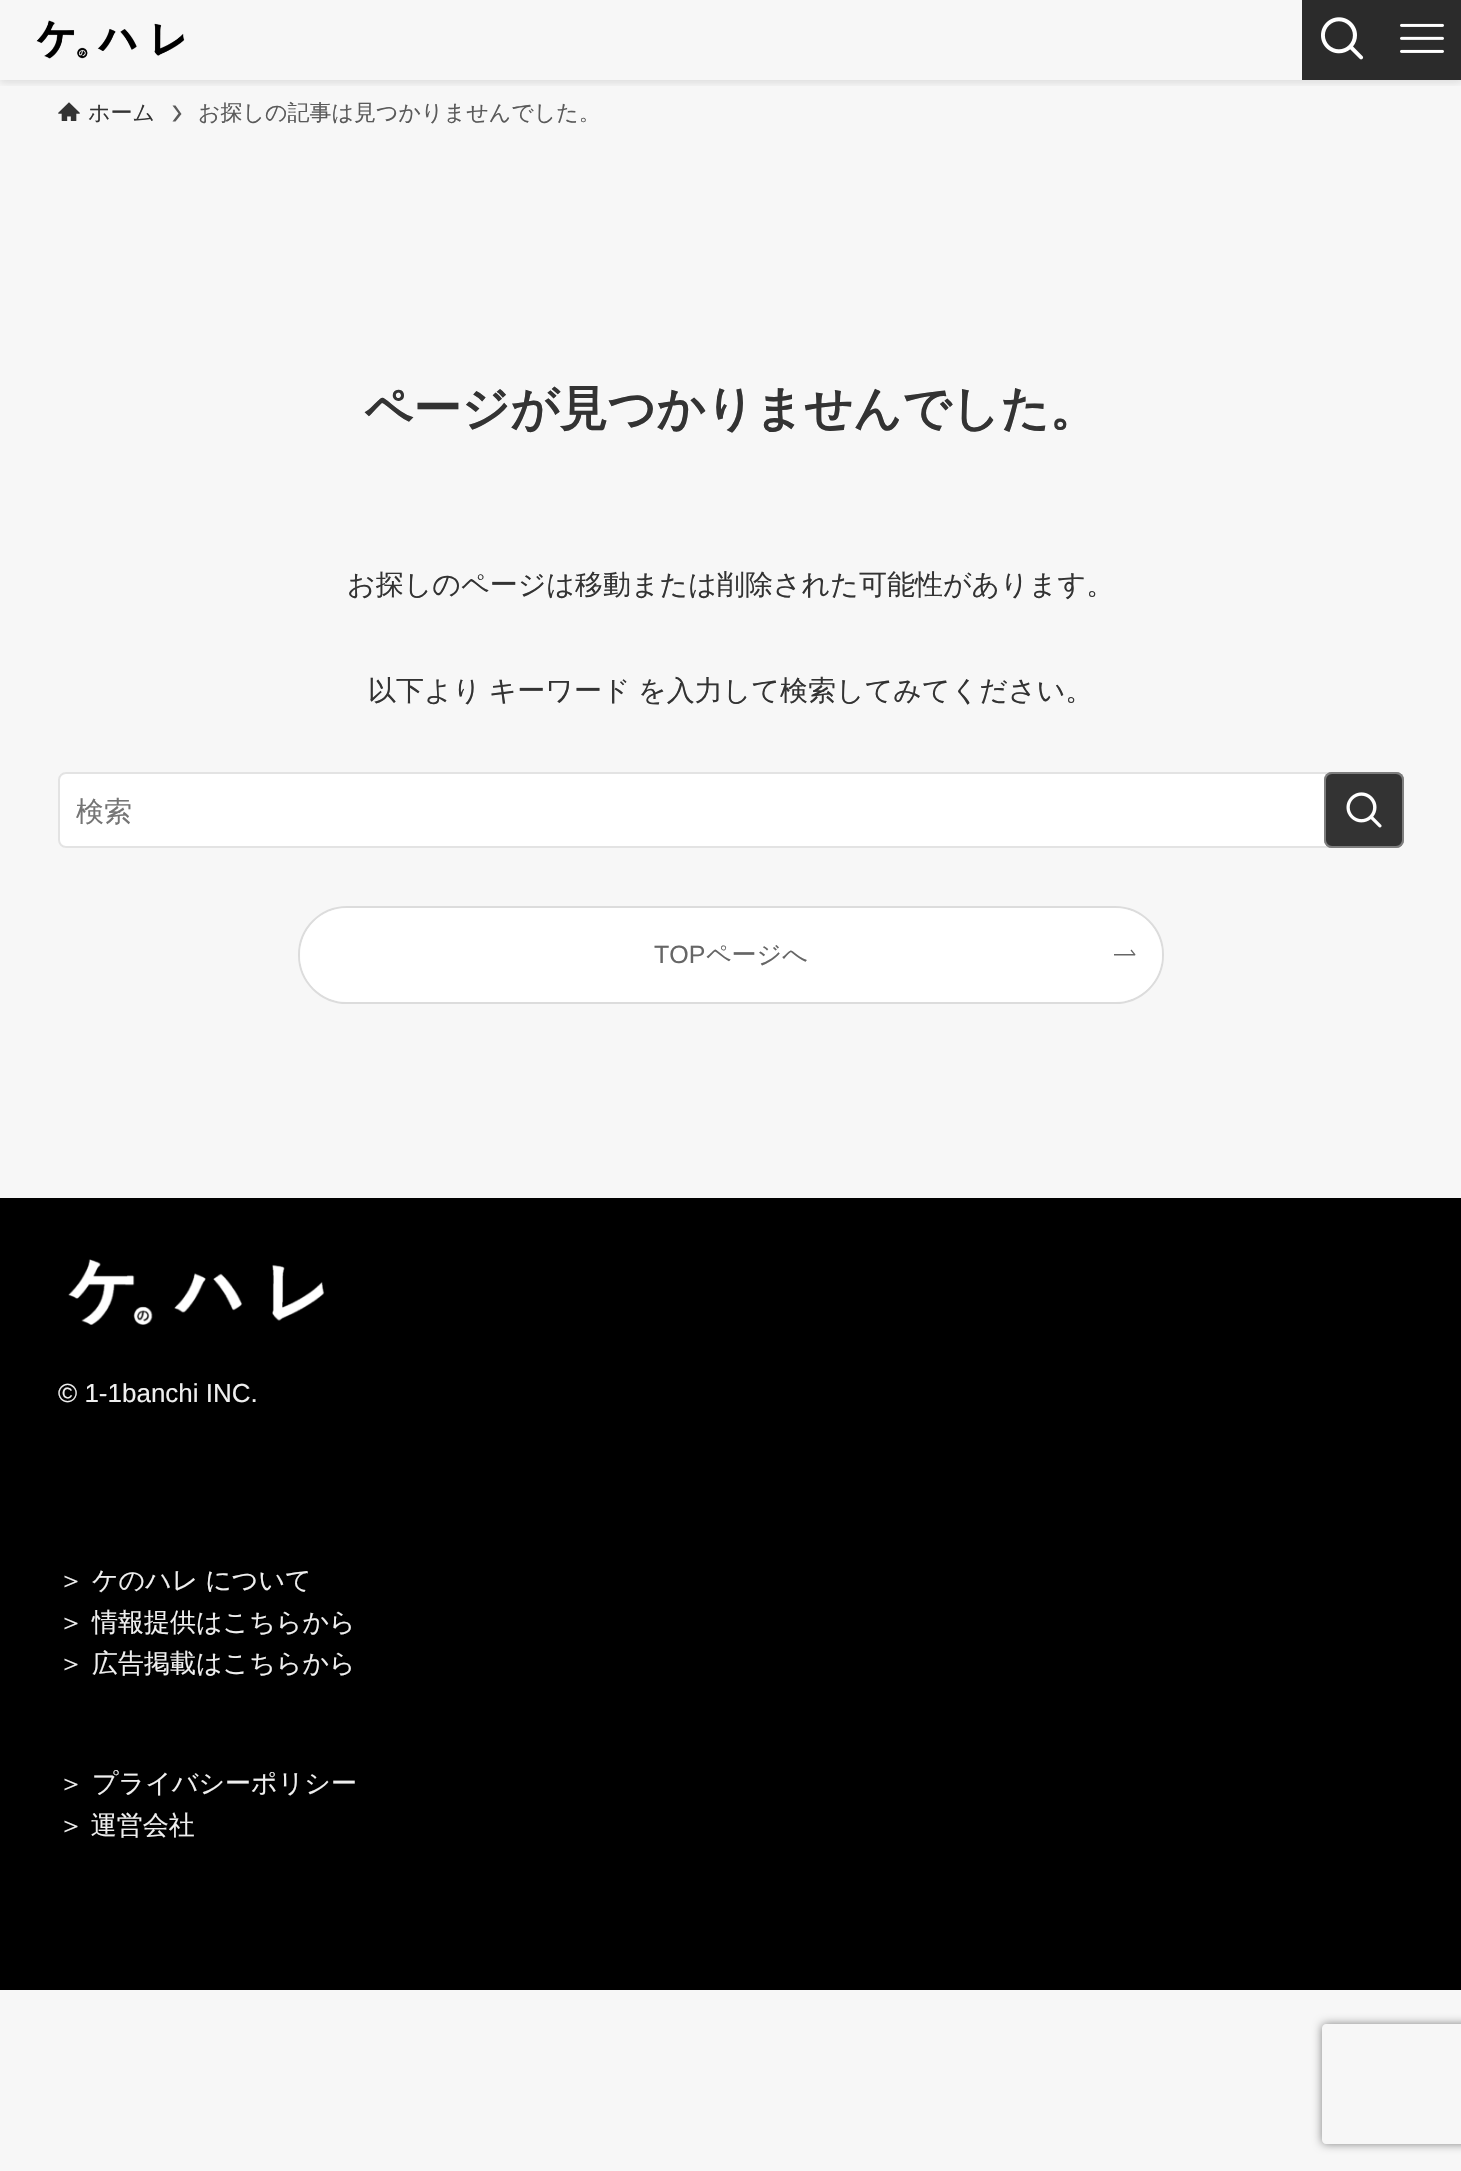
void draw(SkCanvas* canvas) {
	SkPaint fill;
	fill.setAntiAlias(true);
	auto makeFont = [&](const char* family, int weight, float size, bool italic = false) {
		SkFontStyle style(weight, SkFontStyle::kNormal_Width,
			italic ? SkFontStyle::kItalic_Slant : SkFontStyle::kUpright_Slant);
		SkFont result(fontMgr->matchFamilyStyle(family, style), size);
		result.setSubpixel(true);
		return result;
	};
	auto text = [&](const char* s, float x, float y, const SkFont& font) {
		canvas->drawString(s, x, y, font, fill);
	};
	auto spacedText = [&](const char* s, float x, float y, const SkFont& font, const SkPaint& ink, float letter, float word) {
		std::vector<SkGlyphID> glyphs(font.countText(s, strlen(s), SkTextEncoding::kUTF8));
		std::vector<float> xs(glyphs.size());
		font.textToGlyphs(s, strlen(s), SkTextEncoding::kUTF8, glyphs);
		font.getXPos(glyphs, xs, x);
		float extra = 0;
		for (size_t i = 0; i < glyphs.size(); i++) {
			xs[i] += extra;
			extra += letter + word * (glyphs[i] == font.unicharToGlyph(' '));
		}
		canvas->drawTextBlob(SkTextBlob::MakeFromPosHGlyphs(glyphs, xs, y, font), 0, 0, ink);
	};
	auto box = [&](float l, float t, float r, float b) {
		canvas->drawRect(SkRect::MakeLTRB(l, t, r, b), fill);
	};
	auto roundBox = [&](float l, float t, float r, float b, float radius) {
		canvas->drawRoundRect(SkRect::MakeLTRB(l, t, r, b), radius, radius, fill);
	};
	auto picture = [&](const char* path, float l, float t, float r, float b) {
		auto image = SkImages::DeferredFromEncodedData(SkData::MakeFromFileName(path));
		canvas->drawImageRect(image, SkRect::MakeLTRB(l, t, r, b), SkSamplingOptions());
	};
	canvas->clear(0xFFF7F7F7);
	canvas->save();
	canvas->clipRect(SkRect::MakeLTRB(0, 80, 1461, 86));
	fill.setColor(0x1F000000);
	fill.setMaskFilter(SkMaskFilter::MakeBlur(kNormal_SkBlurStyle, 4));
	canvas->drawRect(SkRect::MakeLTRB(0, 2, 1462, 82), fill);
	fill.setMaskFilter(nullptr);
	canvas->restore();
	picture("image0.png", 36, 20, 185, 59);
	fill.setColor(0xFF2B2B2B);
	box(1302, 0, 1461, 80);
	picture("image1.png", 1321, 17, 1364, 60);
	picture("image2.png", 1400, 23, 1444, 53);
	picture("image3.png", 58, 102, 80, 121);
	fill.setColor(0xFF5A5A5A);
	canvas->drawPath(SkPathBuilder().moveTo(175.5f, 105.5f).lineTo(172.5f, 105.5f).lineTo(178.5f, 113.5f).lineTo(172.5f, 121.5f).lineTo(175.5f, 121.5f).lineTo(181.5f, 114).close().detach(), fill);
	fill.setColor(0xFFFFFFFF);
	roundBox(58, 772, 1404, 848, 8);
	fill.setStyle(SkPaint::kStroke_Style);
	fill.setStrokeWidth(2);
	fill.setColor(0x80C7C7C7);
	canvas->drawRoundRect(SkRect::MakeLTRB(59, 773, 1403, 847), 7, 7, fill);
	fill.setStyle(SkPaint::kFill_Style);
	fill.setColor(0xFF333333);
	roundBox(1324, 772, 1404, 848, 8);
	fill.setStyle(SkPaint::kStroke_Style);
	fill.setColor(0x80C7C7C7);
	canvas->drawRoundRect(SkRect::MakeLTRB(1325, 773, 1403, 847), 7, 7, fill);
	picture("image4.png", 1346, 792, 1382, 828);
	fill.setColor(0xFFDCDCDC);
	canvas->drawRoundRect(SkRect::MakeLTRB(299, 907, 1163, 1003), 48, 48, fill);
	fill.setStyle(SkPaint::kFill_Style);
	fill.setColor(0xFFFFFFFF);
	roundBox(300, 908, 1162, 1002, 47);
	fill.setColor(0xFF666666);
	canvas->drawPath(SkPathBuilder().moveTo(1135, 955.5f).lineTo(1114, 955.5f).lineTo(1114, 954).lineTo(1133.5f, 954).lineTo(1130.5f, 950.5f).lineTo(1131.5f, 949.5f).lineTo(1135.5f, 954.5f).close().detach(), fill);
	fill.setColor(0xFF000000);
	box(0, 1198, 1461, 1990);
	picture("image5.png", 68, 1259, 325, 1325);
	canvas->save();
	canvas->clipPath(SkPathBuilder(SkPathFillType::kEvenOdd).moveTo(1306, 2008).lineTo(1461, 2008).lineTo(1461, 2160).lineTo(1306, 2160).close().moveTo(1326, 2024).lineTo(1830, 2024).cubicTo(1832, 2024, 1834, 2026, 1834, 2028).lineTo(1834, 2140).cubicTo(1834, 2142, 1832, 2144, 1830, 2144).lineTo(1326, 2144).cubicTo(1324, 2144, 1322, 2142, 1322, 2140).lineTo(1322, 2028).cubicTo(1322, 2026, 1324, 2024, 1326, 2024).close().detach(), true);
	fill.setColor(0xFF808080);
	fill.setMaskFilter(SkMaskFilter::MakeBlur(kNormal_SkBlurStyle, 5));
	canvas->drawRoundRect(SkRect::MakeLTRB(1322, 2024, 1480, 2144), 4, 4, fill);
	fill.setMaskFilter(nullptr);
	canvas->restore();
	auto font1 = makeFont("WenQuanYi Zen Hei", 500, 22);
	fill.setColor(0xFF333333);
	text("ホーム", 88, 120, font1);
	fill.setColor(0xFF5A5A5A);
	text("お探しの記事は見つかりませんでした。", 198, 120, font1);
	auto font2 = makeFont("WenQuanYi Zen Hei", 700, 48);
	fill.setColor(0xFF333333);
	text("ページが見つかりませんでした。", 364, 425, font2);
	auto font3 = makeFont("WenQuanYi Zen Hei", 500, 28);
	text("お探しのページは移動または削除された可能性があります。", 347, 594, font3);
	spacedText("以下より キーワード を入力して検索してみてください。", 368, 700, font3, fill, 0, -1);
	fill.setColor(0xFF757575);
	text("検索", 76, 821, font3);
	auto font4 = makeFont("Liberation Sans", 400, 25);
	fill.setColor(0xFF666666);
	text("TOP", 654, 963, font4);
	auto font5 = makeFont("WenQuanYi Zen Hei", 500, 25);
	text("ページへ", 706, 963, font5);
	auto font6 = makeFont("Liberation Sans", 400, 26);
	fill.setColor(0xFFEFEFEF);
	text("© 1-1banchi INC.", 58, 1402, font6);
	auto font7 = makeFont("WenQuanYi Zen Hei", 500, 26);
	text("＞", 58, 1589, font7);
	spacedText("ケのハレ について", 92, 1589, font7, fill, 0, -1);
	text("＞", 58, 1631, font7);
	text("情報提供はこちらから", 92, 1631, font7);
	text("＞", 58, 1672, font7);
	text("広告掲載はこちらから", 92, 1672, font7);
	text("＞", 58, 1792, font7);
	text("プライバシーポリシー", 92, 1792, font7);
	spacedText("＞ 運営会社", 58, 1834, font7, fill, 0, -1);
}
